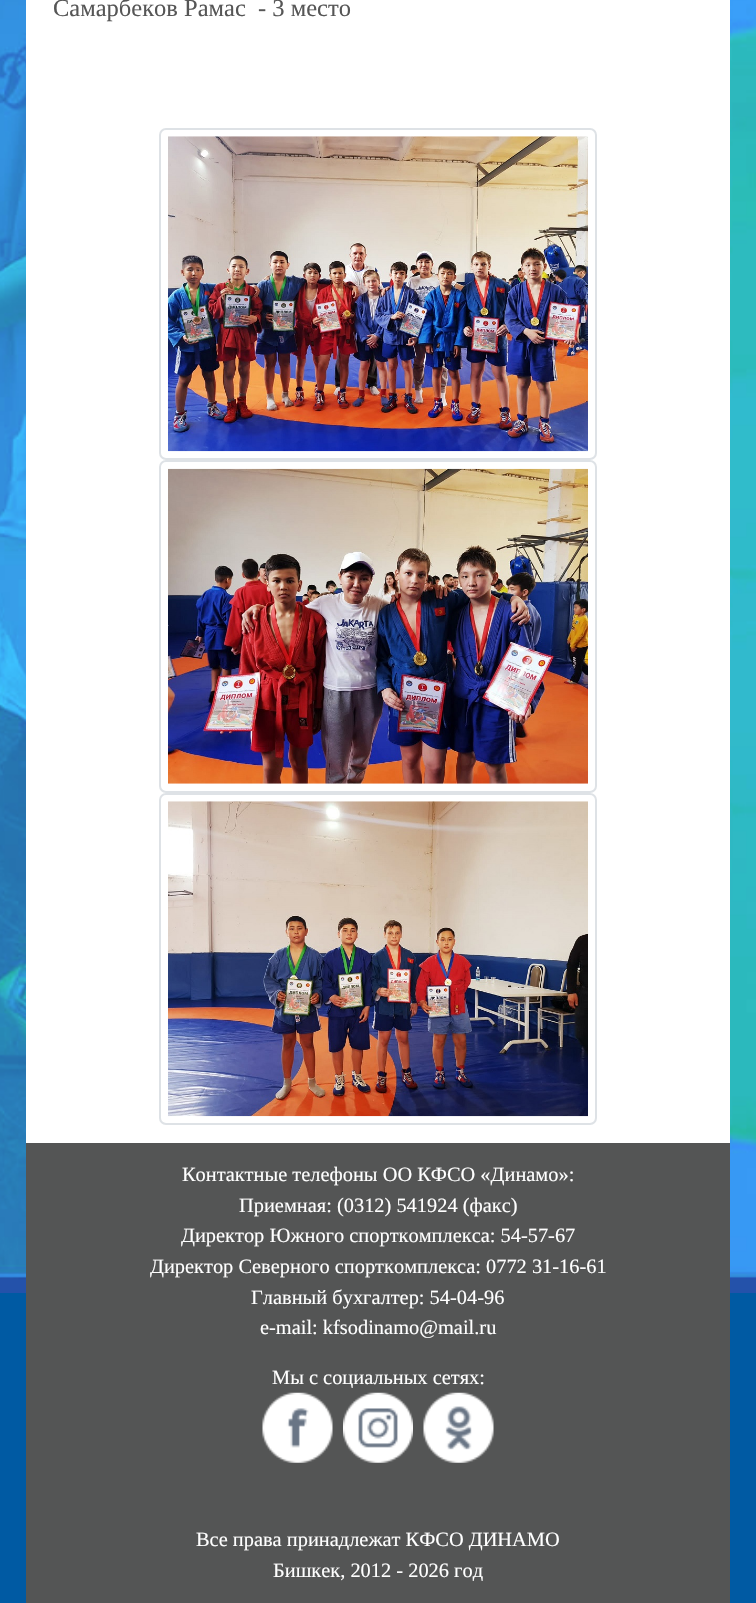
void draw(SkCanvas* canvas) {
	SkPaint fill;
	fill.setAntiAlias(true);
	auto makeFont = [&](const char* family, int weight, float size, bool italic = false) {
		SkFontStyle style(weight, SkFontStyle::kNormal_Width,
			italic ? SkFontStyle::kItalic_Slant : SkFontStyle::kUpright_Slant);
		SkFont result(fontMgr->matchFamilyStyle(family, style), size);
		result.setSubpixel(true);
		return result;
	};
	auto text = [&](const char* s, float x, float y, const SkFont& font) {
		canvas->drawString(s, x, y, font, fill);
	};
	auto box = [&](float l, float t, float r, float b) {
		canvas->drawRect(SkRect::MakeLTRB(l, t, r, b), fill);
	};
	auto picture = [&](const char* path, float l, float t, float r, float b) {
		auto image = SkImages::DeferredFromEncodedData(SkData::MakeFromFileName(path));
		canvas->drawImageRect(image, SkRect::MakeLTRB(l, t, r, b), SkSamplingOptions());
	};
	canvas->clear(0xFF005AA3);
	picture("image0.png", 0, 0, 756, 1293);
	fill.setColor(0xFFFFFFFF);
	box(26, 0, 730, 1143);
	fill.setStyle(SkPaint::kStroke_Style);
	fill.setStrokeWidth(2);
	fill.setColor(0xFFDEE2E6);
	canvas->drawRoundRect(SkRect::MakeLTRB(160, 129, 596, 459), 6, 6, fill);
	picture("image1.png", 168, 136, 588, 452);
	canvas->drawRoundRect(SkRect::MakeLTRB(160, 461, 596, 792), 6, 6, fill);
	picture("image2.png", 168, 468, 588, 784);
	canvas->drawRoundRect(SkRect::MakeLTRB(160, 794, 596, 1124), 6, 6, fill);
	picture("image3.png", 168, 801, 588, 1117);
	fill.setStyle(SkPaint::kFill_Style);
	fill.setColor(0xFF545555);
	box(26, 1143, 730, 1603);
	picture("image4.png", 262, 1392, 333, 1463);
	picture("image5.png", 343, 1392, 413, 1463);
	picture("image6.png", 423, 1392, 494, 1463);
	auto font1 = makeFont("Liberation Serif", 400, 24.5f);
	fill.setColor(0xFF565656);
	text("Самарбеков Рамас  - 3 место", 53, 16, font1);
	auto font2 = makeFont("Liberation Serif", 400, 20.4f);
	fill.setColor(0xFFFFFFFF);
	text("Контактные телефоны ОО КФСО «Динамо»:", 182, 1181, font2);
	text("Приемная: (0312) 541924 (факс)", 239, 1212, font2);
	text("Директор Южного спорткомплекса: 54-57-67", 181, 1242, font2);
	text("Директор Северного спорткомплекса: 0772 31-16-61", 150, 1273, font2);
	text("Главный бухгалтер: 54-04-96", 251, 1304, font2);
	text("e-mail: kfsodinamo@mail.ru", 260, 1334, font2);
	text("Мы с социальных сетях:", 272, 1384, font2);
	text("Все права принадлежат КФСО ДИНАМО", 196, 1546, font2);
	text("Бишкек, 2012 - 2026 год", 273, 1577, font2);
}
